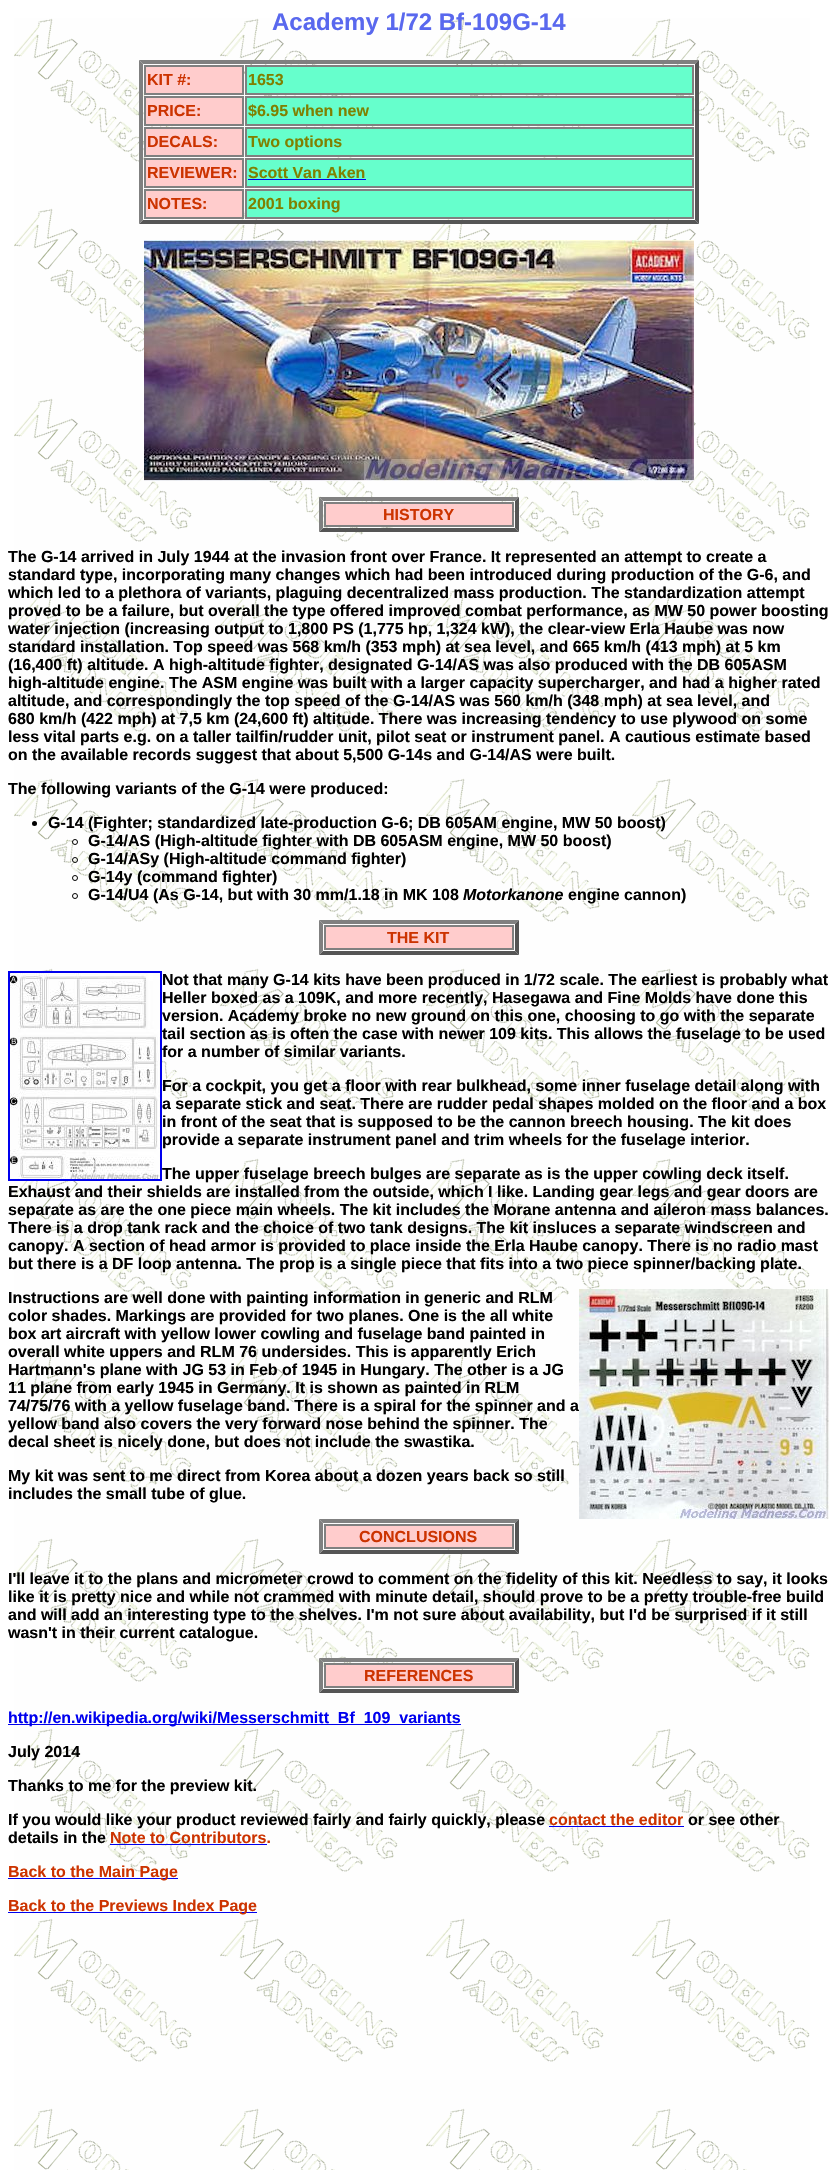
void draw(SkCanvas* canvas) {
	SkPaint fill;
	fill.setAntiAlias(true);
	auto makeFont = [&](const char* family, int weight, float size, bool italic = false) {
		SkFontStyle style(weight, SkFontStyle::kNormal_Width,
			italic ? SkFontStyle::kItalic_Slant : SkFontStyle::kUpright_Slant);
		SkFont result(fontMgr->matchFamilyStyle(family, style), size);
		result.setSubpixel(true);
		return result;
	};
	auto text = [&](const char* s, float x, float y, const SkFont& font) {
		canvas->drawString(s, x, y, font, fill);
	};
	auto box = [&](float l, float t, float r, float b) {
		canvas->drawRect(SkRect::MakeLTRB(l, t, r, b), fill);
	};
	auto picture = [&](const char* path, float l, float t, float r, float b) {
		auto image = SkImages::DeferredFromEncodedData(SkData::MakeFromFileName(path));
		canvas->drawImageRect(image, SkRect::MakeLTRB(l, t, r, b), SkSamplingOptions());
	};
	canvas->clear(0xFFFFFFFF);
	picture("image0.png", 14, 18, 810, 2170);
	fill.setColor(0xFF808080);
	canvas->drawPath(SkPathBuilder().moveTo(139, 60).lineTo(699, 60).lineTo(695, 64).lineTo(143, 64).close().detach(), fill);
	fill.setColor(0xFF555555);
	canvas->drawPath(SkPathBuilder().moveTo(699, 60).lineTo(699, 224).lineTo(695, 220).lineTo(695, 64).close().detach(), fill);
	canvas->drawPath(SkPathBuilder().moveTo(699, 224).lineTo(139, 224).lineTo(143, 220).lineTo(695, 220).close().detach(), fill);
	fill.setColor(0xFF808080);
	canvas->drawPath(SkPathBuilder().moveTo(139, 224).lineTo(139, 60).lineTo(143, 64).lineTo(143, 220).close().detach(), fill);
	fill.setColor(0xFFFFCCCC);
	canvas->drawRect(SkRect::MakeLTRB(145, 66, 243, 94), fill);
	fill.setStyle(SkPaint::kStroke_Style);
	fill.setStrokeWidth(2);
	fill.setColor(0xFF808080);
	canvas->drawRect(SkRect::MakeLTRB(145, 66, 243, 94), fill);
	fill.setStyle(SkPaint::kFill_Style);
	fill.setColor(0xFF66FFCC);
	canvas->drawRect(SkRect::MakeLTRB(246, 66, 693, 94), fill);
	fill.setStyle(SkPaint::kStroke_Style);
	fill.setColor(0xFF808080);
	canvas->drawRect(SkRect::MakeLTRB(246, 66, 693, 94), fill);
	fill.setStyle(SkPaint::kFill_Style);
	fill.setColor(0xFFFFCCCC);
	canvas->drawRect(SkRect::MakeLTRB(145, 97, 243, 125), fill);
	fill.setStyle(SkPaint::kStroke_Style);
	fill.setColor(0xFF808080);
	canvas->drawRect(SkRect::MakeLTRB(145, 97, 243, 125), fill);
	fill.setStyle(SkPaint::kFill_Style);
	fill.setColor(0xFF66FFCC);
	canvas->drawRect(SkRect::MakeLTRB(246, 97, 693, 125), fill);
	fill.setStyle(SkPaint::kStroke_Style);
	fill.setColor(0xFF808080);
	canvas->drawRect(SkRect::MakeLTRB(246, 97, 693, 125), fill);
	fill.setStyle(SkPaint::kFill_Style);
	fill.setColor(0xFFFFCCCC);
	canvas->drawRect(SkRect::MakeLTRB(145, 128, 243, 156), fill);
	fill.setStyle(SkPaint::kStroke_Style);
	fill.setColor(0xFF808080);
	canvas->drawRect(SkRect::MakeLTRB(145, 128, 243, 156), fill);
	fill.setStyle(SkPaint::kFill_Style);
	fill.setColor(0xFF66FFCC);
	canvas->drawRect(SkRect::MakeLTRB(246, 128, 693, 156), fill);
	fill.setStyle(SkPaint::kStroke_Style);
	fill.setColor(0xFF808080);
	canvas->drawRect(SkRect::MakeLTRB(246, 128, 693, 156), fill);
	fill.setStyle(SkPaint::kFill_Style);
	fill.setColor(0xFFFFCCCC);
	canvas->drawRect(SkRect::MakeLTRB(145, 159, 243, 187), fill);
	fill.setStyle(SkPaint::kStroke_Style);
	fill.setColor(0xFF808080);
	canvas->drawRect(SkRect::MakeLTRB(145, 159, 243, 187), fill);
	fill.setStyle(SkPaint::kFill_Style);
	fill.setColor(0xFF66FFCC);
	canvas->drawRect(SkRect::MakeLTRB(246, 159, 693, 187), fill);
	fill.setStyle(SkPaint::kStroke_Style);
	fill.setColor(0xFF808080);
	canvas->drawRect(SkRect::MakeLTRB(246, 159, 693, 187), fill);
	fill.setStyle(SkPaint::kFill_Style);
	fill.setColor(0xFF0000EE);
	box(248, 179, 366, 180);
	fill.setColor(0xFFFFCCCC);
	canvas->drawRect(SkRect::MakeLTRB(145, 190, 243, 218), fill);
	fill.setStyle(SkPaint::kStroke_Style);
	fill.setColor(0xFF808080);
	canvas->drawRect(SkRect::MakeLTRB(145, 190, 243, 218), fill);
	fill.setStyle(SkPaint::kFill_Style);
	fill.setColor(0xFF66FFCC);
	canvas->drawRect(SkRect::MakeLTRB(246, 190, 693, 218), fill);
	fill.setStyle(SkPaint::kStroke_Style);
	fill.setColor(0xFF808080);
	canvas->drawRect(SkRect::MakeLTRB(246, 190, 693, 218), fill);
	picture("image1.png", 144, 240, 694, 481);
	fill.setStyle(SkPaint::kFill_Style);
	canvas->drawPath(SkPathBuilder().moveTo(319, 497).lineTo(519, 497).lineTo(515, 501).lineTo(323, 501).close().detach(), fill);
	fill.setColor(0xFF555555);
	canvas->drawPath(SkPathBuilder().moveTo(519, 497).lineTo(519, 532).lineTo(515, 528).lineTo(515, 501).close().detach(), fill);
	canvas->drawPath(SkPathBuilder().moveTo(519, 532).lineTo(319, 532).lineTo(323, 528).lineTo(515, 528).close().detach(), fill);
	fill.setColor(0xFF808080);
	canvas->drawPath(SkPathBuilder().moveTo(319, 532).lineTo(319, 497).lineTo(323, 501).lineTo(323, 528).close().detach(), fill);
	fill.setColor(0xFFFFCCCC);
	canvas->drawRect(SkRect::MakeLTRB(325, 503, 513, 526), fill);
	fill.setStyle(SkPaint::kStroke_Style);
	fill.setColor(0xFF808080);
	canvas->drawRect(SkRect::MakeLTRB(325, 503, 513, 526), fill);
	fill.setStyle(SkPaint::kFill_Style);
	fill.setColor(0xFF000000);
	canvas->drawCircle(34.5f, 823.5f, 2.5f, fill);
	fill.setStyle(SkPaint::kStroke_Style);
	fill.setStrokeWidth(1);
	canvas->drawCircle(75, 842, 2.5f, fill);
	canvas->drawCircle(75, 860, 2.5f, fill);
	canvas->drawCircle(75, 878, 2.5f, fill);
	canvas->drawCircle(75, 896, 2.5f, fill);
	fill.setStyle(SkPaint::kFill_Style);
	fill.setColor(0xFF808080);
	canvas->drawPath(SkPathBuilder().moveTo(319, 920).lineTo(519, 920).lineTo(515, 924).lineTo(323, 924).close().detach(), fill);
	fill.setColor(0xFF555555);
	canvas->drawPath(SkPathBuilder().moveTo(519, 920).lineTo(519, 955).lineTo(515, 951).lineTo(515, 924).close().detach(), fill);
	canvas->drawPath(SkPathBuilder().moveTo(519, 955).lineTo(319, 955).lineTo(323, 951).lineTo(515, 951).close().detach(), fill);
	fill.setColor(0xFF808080);
	canvas->drawPath(SkPathBuilder().moveTo(319, 955).lineTo(319, 920).lineTo(323, 924).lineTo(323, 951).close().detach(), fill);
	fill.setColor(0xFFFFCCCC);
	canvas->drawRect(SkRect::MakeLTRB(325, 926, 513, 949), fill);
	fill.setStyle(SkPaint::kStroke_Style);
	fill.setStrokeWidth(2);
	fill.setColor(0xFF808080);
	canvas->drawRect(SkRect::MakeLTRB(325, 926, 513, 949), fill);
	fill.setColor(0xFF0000EE);
	canvas->drawRect(SkRect::MakeLTRB(9, 972, 161, 1180), fill);
	picture("image2.png", 10, 973, 160, 1179);
	picture("image3.png", 579, 1289, 829, 1519);
	fill.setStyle(SkPaint::kFill_Style);
	fill.setColor(0xFF808080);
	canvas->drawPath(SkPathBuilder().moveTo(319, 1519).lineTo(519, 1519).lineTo(515, 1523).lineTo(323, 1523).close().detach(), fill);
	fill.setColor(0xFF555555);
	canvas->drawPath(SkPathBuilder().moveTo(519, 1519).lineTo(519, 1554).lineTo(515, 1550).lineTo(515, 1523).close().detach(), fill);
	canvas->drawPath(SkPathBuilder().moveTo(519, 1554).lineTo(319, 1554).lineTo(323, 1550).lineTo(515, 1550).close().detach(), fill);
	fill.setColor(0xFF808080);
	canvas->drawPath(SkPathBuilder().moveTo(319, 1554).lineTo(319, 1519).lineTo(323, 1523).lineTo(323, 1550).close().detach(), fill);
	fill.setColor(0xFFFFCCCC);
	canvas->drawRect(SkRect::MakeLTRB(325, 1525, 513, 1548), fill);
	fill.setStyle(SkPaint::kStroke_Style);
	fill.setColor(0xFF808080);
	canvas->drawRect(SkRect::MakeLTRB(325, 1525, 513, 1548), fill);
	fill.setStyle(SkPaint::kFill_Style);
	canvas->drawPath(SkPathBuilder().moveTo(319, 1658).lineTo(519, 1658).lineTo(515, 1662).lineTo(323, 1662).close().detach(), fill);
	fill.setColor(0xFF555555);
	canvas->drawPath(SkPathBuilder().moveTo(519, 1658).lineTo(519, 1693).lineTo(515, 1689).lineTo(515, 1662).close().detach(), fill);
	canvas->drawPath(SkPathBuilder().moveTo(519, 1693).lineTo(319, 1693).lineTo(323, 1689).lineTo(515, 1689).close().detach(), fill);
	fill.setColor(0xFF808080);
	canvas->drawPath(SkPathBuilder().moveTo(319, 1693).lineTo(319, 1658).lineTo(323, 1662).lineTo(323, 1689).close().detach(), fill);
	fill.setColor(0xFFFFCCCC);
	canvas->drawRect(SkRect::MakeLTRB(325, 1664, 513, 1687), fill);
	fill.setStyle(SkPaint::kStroke_Style);
	fill.setColor(0xFF808080);
	canvas->drawRect(SkRect::MakeLTRB(325, 1664, 513, 1687), fill);
	fill.setStyle(SkPaint::kFill_Style);
	fill.setColor(0xFF0000EE);
	box(8, 1724, 461, 1725);
	box(549, 1826, 684, 1827);
	box(110, 1844, 267, 1845);
	box(8, 1878, 178, 1879);
	box(8, 1912, 257, 1913);
	auto font1 = makeFont("Liberation Sans", 700, 24);
	fill.setColor(0xFF5968EE);
	text("Academy 1/72 Bf-109G-14", 272, 30, font1);
	auto font2 = makeFont("Liberation Sans", 700, 16);
	fill.setColor(0xFFCC3300);
	text("KIT #:", 147, 85, font2);
	fill.setColor(0xFF808000);
	text("1653", 248, 85, font2);
	fill.setColor(0xFFCC3300);
	text("PRICE:", 147, 116, font2);
	fill.setColor(0xFF808000);
	text("$6.95 when new", 248, 116, font2);
	fill.setColor(0xFFCC3300);
	text("DECALS:", 147, 147, font2);
	fill.setColor(0xFF808000);
	text("Two options", 248, 147, font2);
	fill.setColor(0xFFCC3300);
	text("REVIEWER:", 147, 178, font2);
	fill.setColor(0xFF808000);
	text("Scott Van Aken", 248, 178, font2);
	fill.setColor(0xFFCC3300);
	text("NOTES:", 147, 209, font2);
	fill.setColor(0xFF808000);
	text("2001 boxing", 248, 209, font2);
	fill.setColor(0xFFCC3300);
	text("HISTORY", 383, 520, font2);
	fill.setColor(0xFF000000);
	text("The G-14 arrived in July 1944 at the invasion front over France. It represented an attempt to create a", 8, 562, font2);
	text("standard type, incorporating many changes which had been introduced during production of the G-6, and", 8, 580, font2);
	text("which led to a plethora of variants, plaguing decentralized mass production. The standardization attempt", 8, 598, font2);
	text("proved to be a failure, but overall the type offered improved combat performance, as MW 50 power boosting", 8, 616, font2);
	text("water injection (increasing output to 1,800 PS (1,775 hp, 1,324 kW), the clear-view Erla Haube was now", 8, 634, font2);
	text("standard installation. Top speed was 568 km/h (353 mph) at sea level, and 665 km/h (413 mph) at 5 km", 8, 652, font2);
	text("(16,400 ft) altitude. A high-altitude fighter, designated G-14/AS was also produced with the DB 605ASM", 8, 670, font2);
	text("high-altitude engine. The ASM engine was built with a larger capacity supercharger, and had a higher rated", 8, 688, font2);
	text("altitude, and correspondingly the top speed of the G-14/AS was 560 km/h (348 mph) at sea level, and", 8, 706, font2);
	text("680 km/h (422 mph) at 7,5 km (24,600 ft) altitude. There was increasing tendency to use plywood on some", 8, 724, font2);
	text("less vital parts e.g. on a taller tailfin/rudder unit, pilot seat or instrument panel. A cautious estimate based", 8, 742, font2);
	text("on the available records suggest that about 5,500 G-14s and G-14/AS were built.", 8, 760, font2);
	text("The following variants of the G-14 were produced:", 8, 794, font2);
	text("G-14 (Fighter; standardized late-production G-6; DB 605AM engine, MW 50 boost)", 48, 828, font2);
	text("G-14/AS (High-altitude fighter with DB 605ASM engine, MW 50 boost)", 88, 846, font2);
	text("G-14/ASy (High-altitude command fighter)", 88, 864, font2);
	text("G-14y (command fighter)", 88, 882, font2);
	text("G-14/U4 (As G-14, but with 30 mm/1.18 in MK 108", 88, 900, font2);
	auto font3 = makeFont("Liberation Sans", 700, 16, true);
	text("Motorkanone", 463, 900, font3);
	text("engine cannon)", 568, 900, font2);
	fill.setColor(0xFFCC3300);
	text("THE KIT", 387, 943, font2);
	fill.setColor(0xFF000000);
	text("Not that many G-14 kits have been produced in 1/72 scale. The earliest is probably what", 162, 985, font2);
	text("Heller boxed as a 109K, and more recently, Hasegawa and Fine Molds have done this", 162, 1003, font2);
	text("version. Academy broke no new ground on this one, choosing to go with the separate", 162, 1021, font2);
	text("tail section as is often the case with newer 109 kits. This allows the fuselage to be used", 162, 1039, font2);
	text("for a number of similar variants.", 162, 1057, font2);
	text("For a cockpit, you get a floor with rear bulkhead, some inner fuselage detail along with", 162, 1091, font2);
	text("a separate stick and seat. There are rudder pedal shapes molded on the floor and a box", 162, 1109, font2);
	text("in front of the seat that is supposed to be the cannon breech housing. The kit does", 162, 1127, font2);
	text("provide a separate instrument panel and trim wheels for the fuselage interior.", 162, 1145, font2);
	text("The upper fuselage breech bulges are separate as is the upper cowling deck itself.", 162, 1179, font2);
	text("Exhaust and their shields are installed from the outside, which I like. Landing gear legs and gear doors are", 8, 1197, font2);
	text("separate as are the one piece main wheels. The kit includes the Morane antenna and aileron mass balances.", 8, 1215, font2);
	text("There is a drop tank rack and the choice of two tank designs. The kit insluces a separate windscreen and", 8, 1233, font2);
	text("canopy. A section of head armor is provided to place inside the Erla Haube canopy. There is no radio mast", 8, 1251, font2);
	text("but there is a DF loop antenna. The prop is a single piece that fits into a two piece spinner/backing plate.", 8, 1269, font2);
	text("Instructions are well done with painting information in generic and RLM", 8, 1303, font2);
	text("color shades. Markings are provided for two planes. One is the all white", 8, 1321, font2);
	text("box art aircraft with yellow lower cowling and fuselage band painted in", 8, 1339, font2);
	text("overall white uppers and RLM 76 undersides. This is apparently Erich", 8, 1357, font2);
	text("Hartmann's plane with JG 53 in Feb of 1945 in Hungary. The other is a JG", 8, 1375, font2);
	text("11 plane from early 1945 in Germany. It is shown as painted in RLM", 8, 1393, font2);
	text("74/75/76 with a yellow fuselage band. There is a spiral for the spinner and a", 8, 1411, font2);
	text("yellow band also covers the very forward nose behind the spinner. The", 8, 1429, font2);
	text("decal sheet is nicely done, but does not include the swastika.", 8, 1447, font2);
	text("My kit was sent to me direct from Korea about a dozen years back so still", 8, 1481, font2);
	text("includes the small tube of glue.", 8, 1499, font2);
	fill.setColor(0xFFCC3300);
	text("CONCLUSIONS", 359, 1542, font2);
	fill.setColor(0xFF000000);
	text("I'll leave it to the plans and micrometer crowd to comment on the fidelity of this kit. Needless to say, it looks", 8, 1584, font2);
	text("like it is pretty nice and while not crammed with minute detail, should prove to be a pretty trouble-free build", 8, 1602, font2);
	text("and will add an interesting type to the shelves. I'm not sure about availability, but I'd be surprised if it still", 8, 1620, font2);
	text("wasn't in their current catalogue.", 8, 1638, font2);
	fill.setColor(0xFFCC3300);
	text("REFERENCES", 364, 1681, font2);
	fill.setColor(0xFF0000EE);
	text("http://en.wikipedia.org/wiki/Messerschmitt_Bf_109_variants", 8, 1723, font2);
	fill.setColor(0xFF000000);
	text("July 2014", 8, 1757, font2);
	text("Thanks to me for the preview kit.", 8, 1791, font2);
	text("If you would like your product reviewed fairly and fairly quickly, please", 8, 1825, font2);
	fill.setColor(0xFFCC3300);
	text("contact the editor", 549, 1825, font2);
	fill.setColor(0xFF000000);
	text("or see other", 688, 1825, font2);
	text("details in the", 8, 1843, font2);
	fill.setColor(0xFFCC3300);
	text("Note to Contributors.", 110, 1843, font2);
	text("Back to the Main Page", 8, 1877, font2);
	text("Back to the Previews Index Page", 8, 1911, font2);
}
